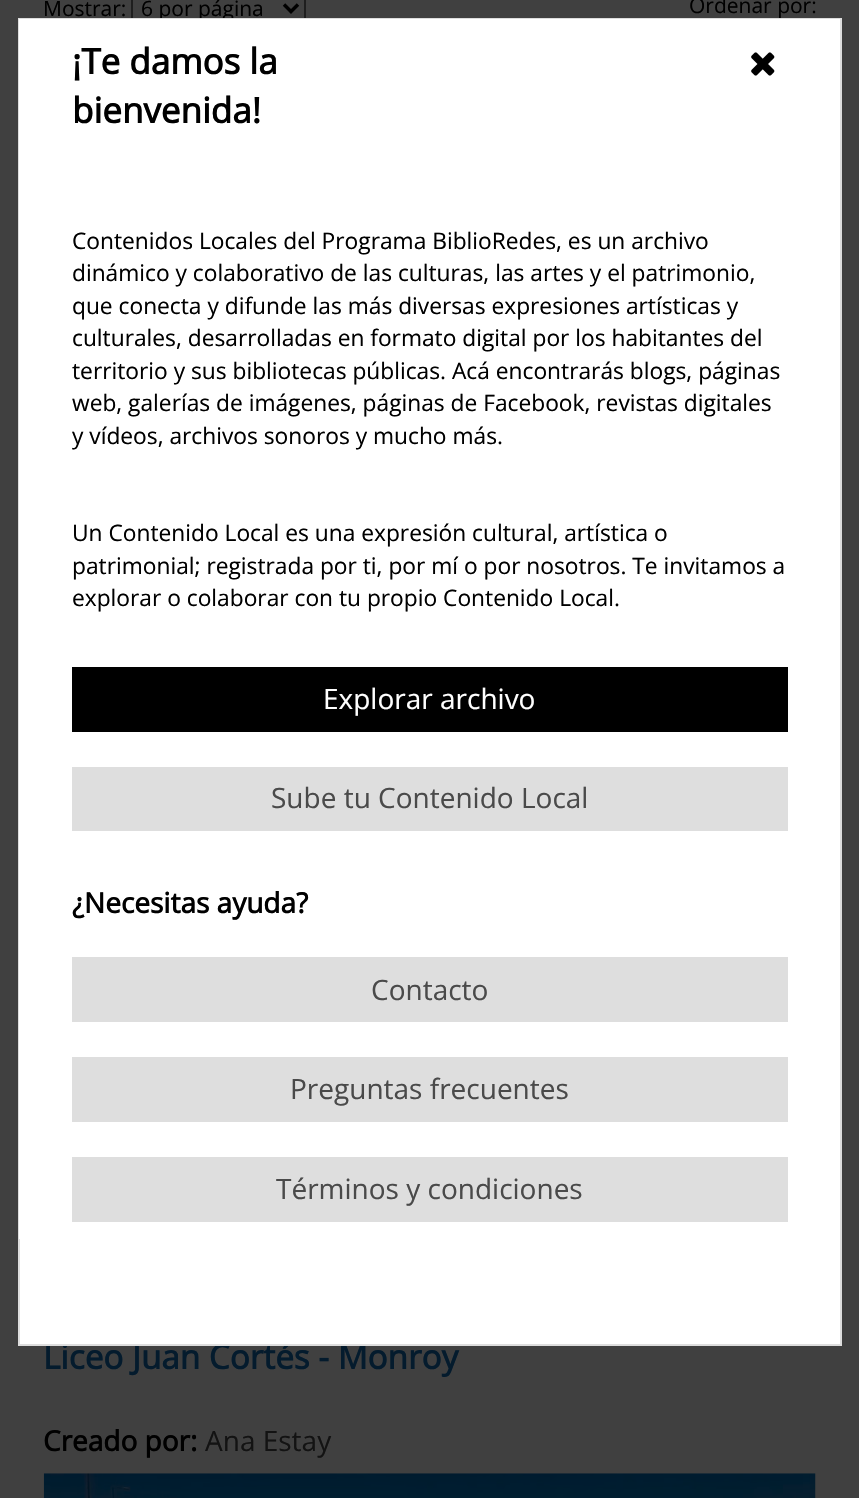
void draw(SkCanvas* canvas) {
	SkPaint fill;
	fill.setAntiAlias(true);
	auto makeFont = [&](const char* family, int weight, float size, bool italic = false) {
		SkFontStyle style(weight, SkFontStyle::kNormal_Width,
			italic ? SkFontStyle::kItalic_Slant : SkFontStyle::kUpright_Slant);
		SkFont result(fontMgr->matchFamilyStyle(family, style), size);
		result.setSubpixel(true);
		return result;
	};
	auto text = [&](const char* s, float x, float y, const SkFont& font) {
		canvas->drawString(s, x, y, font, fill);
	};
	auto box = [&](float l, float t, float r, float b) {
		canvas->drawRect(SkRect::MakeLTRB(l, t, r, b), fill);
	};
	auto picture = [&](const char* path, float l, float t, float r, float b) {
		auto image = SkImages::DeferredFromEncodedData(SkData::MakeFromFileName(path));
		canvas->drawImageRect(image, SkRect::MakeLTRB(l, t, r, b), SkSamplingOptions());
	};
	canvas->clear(0xFF404040);
	fill.setStyle(SkPaint::kStroke_Style);
	fill.setStrokeWidth(2);
	fill.setColor(0xFF1E1E1E);
	canvas->drawRect(SkRect::MakeLTRB(132, -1, 305, 25), fill);
	fill.setStrokeWidth(3.5f);
	fill.setColor(0xFF000000);
	canvas->drawPath(SkPathBuilder().moveTo(284, 4.5f).lineTo(291, 11.5f).lineTo(298, 4.5f).detach(), fill);
	picture("image0.png", 43, 1473, 816, 1498);
	auto font1 = makeFont("Open Sans", 400, 21);
	fill.setStyle(SkPaint::kFill_Style);
	text("Mostrar:", 43, 16, font1);
	text("6 por página", 141, 16, font1);
	text("Ordenar por:", 689, 13, font1);
	auto font2 = makeFont("Open Sans", 700, 33.25f);
	fill.setColor(0xFF041B2D);
	text("Liceo Juan Cortés - Monroy", 43, 1369, font2);
	auto font3 = makeFont("Open Sans", 700, 28);
	fill.setColor(0xFF000000);
	text("Creado por:", 43, 1451, font3);
	auto font4 = makeFont("Open Sans", 400, 28);
	fill.setColor(0xFF131313);
	text("Ana Estay", 205, 1451, font4);
	fill.setColor(0xFFFFFFFF);
	box(20, 161, 840, 1344);
	fill.setStyle(SkPaint::kStroke_Style);
	fill.setStrokeWidth(2);
	fill.setColor(0xFFDEDEDE);
	canvas->drawRect(SkRect::MakeLTRB(19, 19, 841, 1345), fill);
	fill.setStyle(SkPaint::kFill_Style);
	fill.setColor(0xFFFFFFFF);
	box(19, 19, 431, 207);
	auto font5 = makeFont("Open Sans", 700, 35);
	fill.setColor(0xFF000000);
	text("¡Te damos la", 72, 74, font5);
	text("bienvenida!", 72, 123, font5);
	fill.setColor(0xFFFFFFFF);
	box(431, 19, 840, 161);
	picture("image1.png", 751, 52, 775, 76);
	box(19, 207, 20, 1239);
	auto font6 = makeFont("Open Sans", 400, 22.75f);
	fill.setColor(0xFF000000);
	text("Contenidos Locales del Programa BiblioRedes, es un archivo", 72, 249, font6);
	text("dinámico y colaborativo de las culturas, las artes y el patrimonio,", 72, 281, font6);
	text("que conecta y difunde las más diversas expresiones artísticas y", 72, 314, font6);
	text("culturales, desarrolladas en formato digital por los habitantes del", 72, 346, font6);
	text("territorio y sus bibliotecas públicas. Acá encontrarás blogs, páginas", 72, 379, font6);
	text("web, galerías de imágenes, páginas de Facebook, revistas digitales", 72, 411, font6);
	text("y vídeos, archivos sonoros y mucho más.", 72, 444, font6);
	text("Un Contenido Local es una expresión cultural, artística o", 72, 541, font6);
	text("patrimonial; registrada por ti, por mí o por nosotros. Te invitamos a", 72, 574, font6);
	text("explorar o colaborar con tu propio Contenido Local.", 72, 606, font6);
	box(72, 667, 788, 732);
	fill.setColor(0xFFFFFFFF);
	text("Explorar archivo", 323, 709, font4);
	fill.setColor(0xFFDEDEDE);
	box(72, 767, 788, 831);
	fill.setColor(0xFF4A4A4A);
	text("Sube tu Contenido Local", 271, 808, font4);
	fill.setColor(0xFF000000);
	text("¿Necesitas ayuda?", 72, 913, font3);
	fill.setColor(0xFFDEDEDE);
	box(72, 957, 788, 1022);
	fill.setColor(0xFF4A4A4A);
	text("Contacto", 371, 1000, font4);
	fill.setColor(0xFFDEDEDE);
	box(72, 1057, 788, 1122);
	fill.setColor(0xFF4A4A4A);
	text("Preguntas frecuentes", 290, 1099, font4);
	fill.setColor(0xFFDEDEDE);
	box(72, 1157, 788, 1222);
	fill.setColor(0xFF4A4A4A);
	text("Términos y condiciones", 276, 1199, font4);
}
